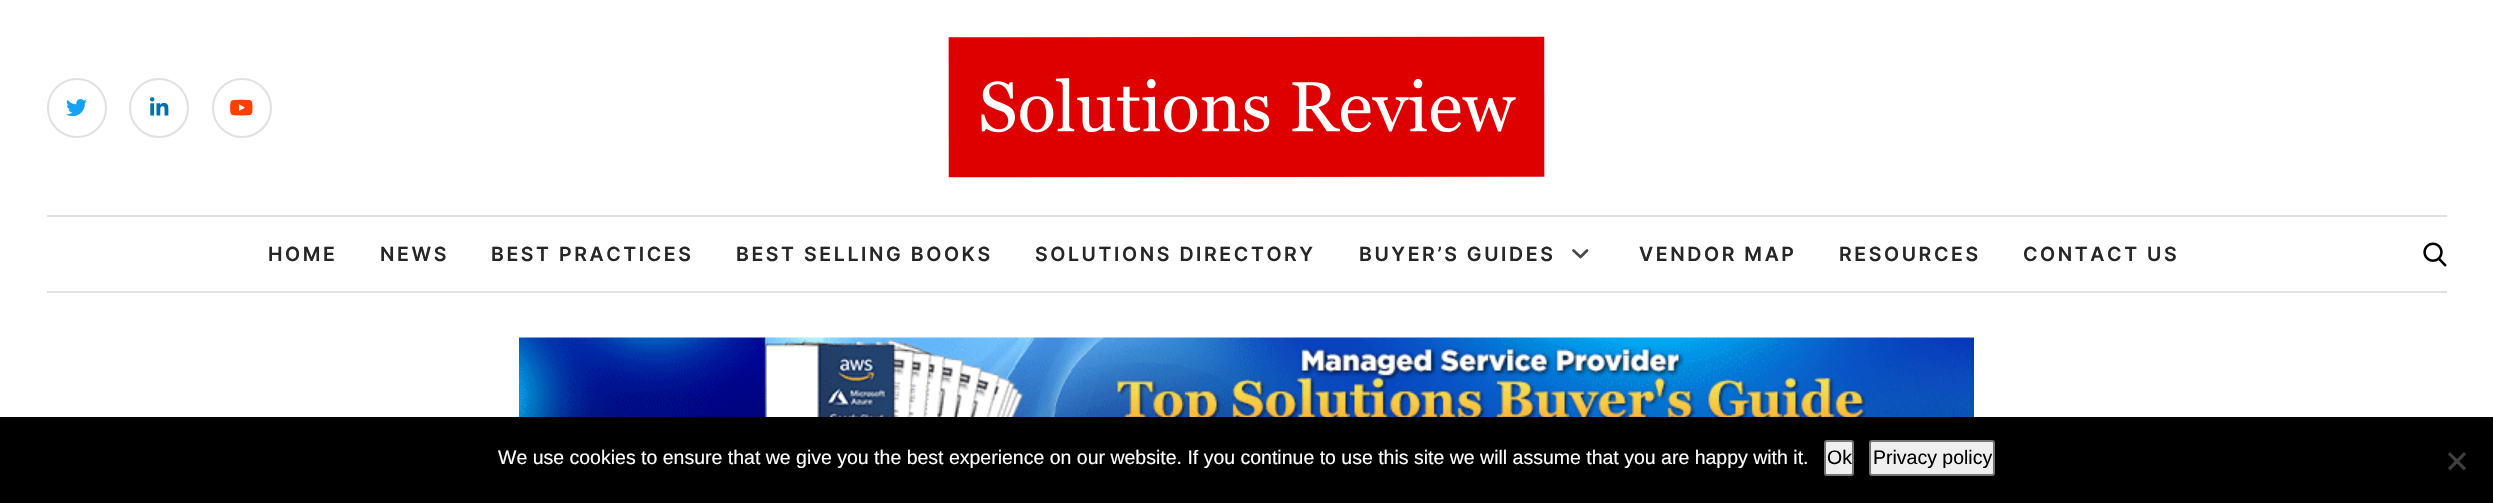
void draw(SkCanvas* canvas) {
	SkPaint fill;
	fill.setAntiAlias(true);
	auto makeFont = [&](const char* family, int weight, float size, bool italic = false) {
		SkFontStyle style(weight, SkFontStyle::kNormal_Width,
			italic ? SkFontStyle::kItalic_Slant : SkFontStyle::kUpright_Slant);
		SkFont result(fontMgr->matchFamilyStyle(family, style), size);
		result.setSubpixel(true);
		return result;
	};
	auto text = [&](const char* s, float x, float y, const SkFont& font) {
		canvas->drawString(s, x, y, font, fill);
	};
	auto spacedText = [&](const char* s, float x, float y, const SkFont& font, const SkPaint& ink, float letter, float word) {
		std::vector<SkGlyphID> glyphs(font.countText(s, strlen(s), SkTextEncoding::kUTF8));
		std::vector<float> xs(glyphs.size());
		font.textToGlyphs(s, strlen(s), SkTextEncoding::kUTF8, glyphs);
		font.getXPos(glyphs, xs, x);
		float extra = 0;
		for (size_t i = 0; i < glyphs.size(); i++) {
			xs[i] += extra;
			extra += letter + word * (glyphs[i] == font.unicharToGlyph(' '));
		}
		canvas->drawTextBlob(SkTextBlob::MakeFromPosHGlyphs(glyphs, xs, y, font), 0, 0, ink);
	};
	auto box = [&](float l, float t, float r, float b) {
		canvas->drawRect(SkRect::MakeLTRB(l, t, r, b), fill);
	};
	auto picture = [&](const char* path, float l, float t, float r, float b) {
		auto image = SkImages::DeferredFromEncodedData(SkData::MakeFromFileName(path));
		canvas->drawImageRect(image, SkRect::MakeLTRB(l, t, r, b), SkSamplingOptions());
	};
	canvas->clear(0xFFFFFFFF);
	fill.setStyle(SkPaint::kStroke_Style);
	fill.setStrokeWidth(2);
	fill.setColor(0xFFE1E1E1);
	canvas->drawCircle(77, 108, 29, fill);
	picture("image0.png", 66, 99, 87, 117);
	canvas->drawCircle(159, 108, 29, fill);
	picture("image1.png", 150, 97, 169, 116);
	canvas->drawCircle(242, 108, 29, fill);
	picture("image2.png", 230, 99, 253, 116);
	picture("image3.png", 948, 36, 1545, 178);
	fill.setStyle(SkPaint::kFill_Style);
	box(47, 215, 2447, 217);
	box(47, 291, 2447, 293);
	fill.setStyle(SkPaint::kStroke_Style);
	fill.setStrokeWidth(2.7f);
	fill.setStrokeCap(SkPaint::kRound_Cap);
	fill.setStrokeJoin(SkPaint::kRound_Join);
	fill.setColor(0xFF454851);
	canvas->drawPath(SkPathBuilder().moveTo(1573.5f, 250.5f).lineTo(1580.5f, 257).lineTo(1587, 250.5f).detach(), fill);
	picture("image4.png", 2423, 242, 2447, 267);
	picture("image5.png", 519, 337, 1974, 417);
	fill.setStyle(SkPaint::kFill_Style);
	fill.setColor(0xFF000000);
	box(0, 417, 2493, 503);
	fill.setColor(0xFFEFEFEF);
	canvas->drawRoundRect(SkRect::MakeLTRB(1825, 441, 1853, 475), 2, 2, fill);
	fill.setStyle(SkPaint::kStroke_Style);
	fill.setStrokeWidth(2);
	fill.setStrokeCap(SkPaint::kButt_Cap);
	fill.setStrokeJoin(SkPaint::kMiter_Join);
	fill.setColor(0xFF767676);
	canvas->drawRoundRect(SkRect::MakeLTRB(1825, 441, 1853, 475), 2, 2, fill);
	fill.setStyle(SkPaint::kFill_Style);
	fill.setColor(0xFFEFEFEF);
	canvas->drawRoundRect(SkRect::MakeLTRB(1870, 441, 1994, 475), 2, 2, fill);
	fill.setStyle(SkPaint::kStroke_Style);
	fill.setColor(0xFF767676);
	canvas->drawRoundRect(SkRect::MakeLTRB(1870, 441, 1994, 475), 2, 2, fill);
	fill.setStyle(SkPaint::kFill_Style);
	fill.setColor(0xFF404040);
	canvas->drawPath(SkPathBuilder().moveTo(2464, 452).lineTo(2466, 454.5f).lineTo(2450, 470.5f).lineTo(2448, 468).close().detach(), fill);
	canvas->drawPath(SkPathBuilder().moveTo(2448, 454.5f).lineTo(2450, 452).lineTo(2466, 468).lineTo(2464, 470.5f).close().detach(), fill);
	auto font1 = makeFont("Inter", 600, 19.5f);
	fill.setColor(0xFF262626);
	spacedText("HOME", 268, 261, font1, fill, 2.6f, 0);
	spacedText("NEWS", 380, 261, font1, fill, 2.6f, 0);
	spacedText("BEST PRACTICES", 491, 261, font1, fill, 2.6f, 0);
	spacedText("BEST SELLING BOOKS", 736, 261, font1, fill, 2.6f, 0);
	spacedText("SOLUTIONS DIRECTORY", 1035, 261, font1, fill, 2.6f, 0);
	spacedText("BUYER’S GUIDES", 1359, 261, font1, fill, 2.6f, 0);
	spacedText("VENDOR MAP", 1639, 261, font1, fill, 2.6f, 0);
	spacedText("RESOURCES", 1839, 261, font1, fill, 2.6f, 0);
	spacedText("CONTACT US", 2023, 261, font1, fill, 2.6f, 0);
	auto font2 = makeFont("Liberation Sans", 400, 19.5f);
	fill.setColor(0xFFFFFFFF);
	text("We use cookies to ensure that we give you the best experience on our website. If you continue to use this site we will assume that you are happy with it.", 498, 464, font2);
	fill.setColor(0xFF000000);
	text("Ok", 1827, 464, font2);
	text("Privacy policy", 1873, 464, font2);
}
